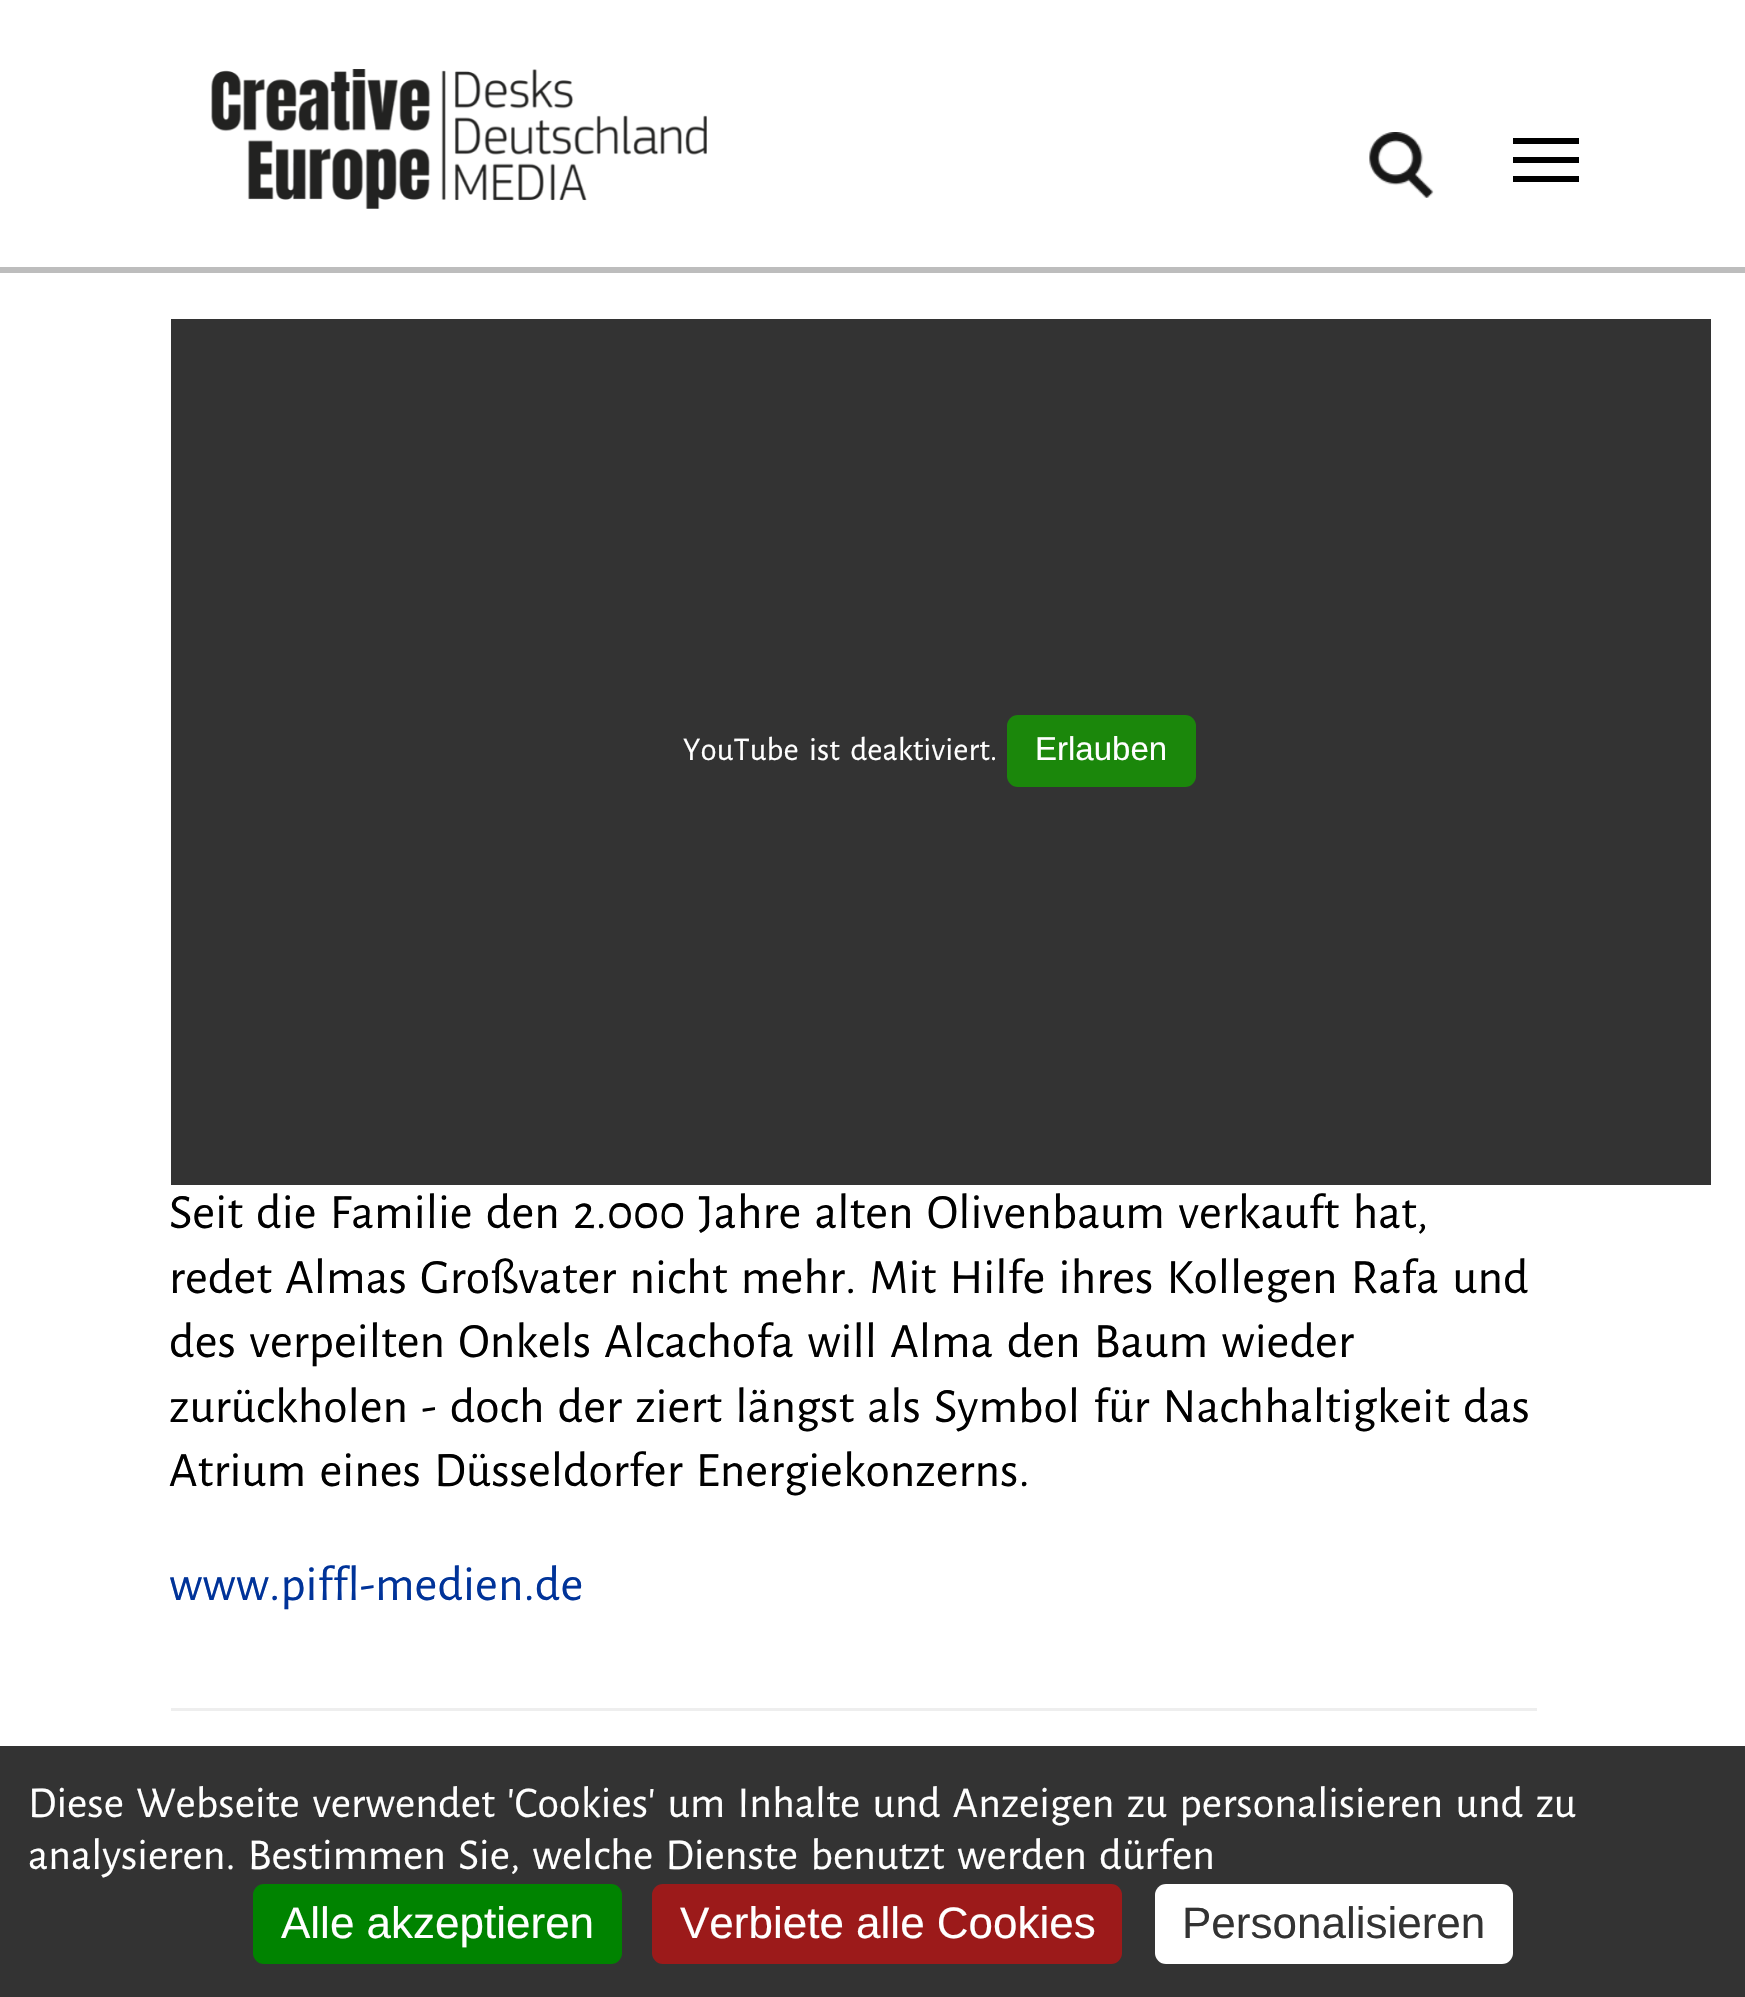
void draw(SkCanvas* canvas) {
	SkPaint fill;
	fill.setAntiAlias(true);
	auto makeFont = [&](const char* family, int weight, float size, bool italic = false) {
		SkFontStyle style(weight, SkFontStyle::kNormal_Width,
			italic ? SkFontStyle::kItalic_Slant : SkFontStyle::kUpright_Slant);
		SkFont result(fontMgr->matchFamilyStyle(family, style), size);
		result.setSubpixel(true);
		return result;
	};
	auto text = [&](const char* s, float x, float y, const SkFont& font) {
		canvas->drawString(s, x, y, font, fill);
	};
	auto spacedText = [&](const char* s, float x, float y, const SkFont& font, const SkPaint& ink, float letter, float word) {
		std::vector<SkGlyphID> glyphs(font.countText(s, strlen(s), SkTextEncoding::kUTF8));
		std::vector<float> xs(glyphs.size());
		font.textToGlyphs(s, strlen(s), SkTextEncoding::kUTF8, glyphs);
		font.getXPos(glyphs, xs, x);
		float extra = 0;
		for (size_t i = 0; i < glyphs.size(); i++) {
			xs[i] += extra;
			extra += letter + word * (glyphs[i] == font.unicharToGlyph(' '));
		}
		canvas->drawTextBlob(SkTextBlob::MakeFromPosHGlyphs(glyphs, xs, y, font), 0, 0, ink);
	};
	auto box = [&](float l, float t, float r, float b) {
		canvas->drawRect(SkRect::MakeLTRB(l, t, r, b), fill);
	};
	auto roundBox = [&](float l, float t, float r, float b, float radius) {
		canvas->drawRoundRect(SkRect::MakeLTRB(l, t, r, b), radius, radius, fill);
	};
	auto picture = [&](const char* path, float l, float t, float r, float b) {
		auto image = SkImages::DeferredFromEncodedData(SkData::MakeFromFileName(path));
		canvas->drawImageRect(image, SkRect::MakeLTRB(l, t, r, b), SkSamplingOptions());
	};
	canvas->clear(0xFFFFFFFF);
	fill.setColor(0xFFBDBDBD);
	box(0, 267, 1745, 273);
	picture("image0.png", 211, 69, 707, 209);
	picture("image1.png", 1369, 132, 1434, 198);
	fill.setColor(0xFF000000);
	box(1513, 157, 1579, 163);
	box(1513, 138, 1579, 144);
	box(1513, 176, 1579, 182);
	fill.setColor(0xFF333333);
	box(171, 319, 1711, 1185);
	fill.setColor(0xFF1B870B);
	roundBox(1007, 715, 1196, 787, 11);
	fill.setColor(0xFFEEEEEE);
	box(171, 1708, 1537, 1711);
	fill.setColor(0xFF333333);
	box(0, 1746, 1745, 1997);
	fill.setColor(0xFF008300);
	roundBox(253, 1884, 622, 1964, 11);
	fill.setColor(0xFF9C1A1A);
	roundBox(652, 1884, 1122, 1964, 11);
	fill.setColor(0xFFFFFFFF);
	roundBox(1155, 1884, 1513, 1964, 11);
	auto font1 = makeFont("Alegreya Sans", 400, 33);
	spacedText("YouTube ist deaktiviert.", 683, 760, font1, fill, 0, 5);
	auto font2 = makeFont("Liberation Sans", 400, 33);
	text("Erlauben", 1035, 760, font2);
	auto font3 = makeFont("Alegreya Sans", 400, 49.5f);
	fill.setColor(0xFF000000);
	spacedText("Seit die Familie den 2.000 Jahre alten Olivenbaum verkauft hat,", 169, 1228, font3, fill, 0, 5);
	spacedText("redet Almas Großvater nicht mehr. Mit Hilfe ihres Kollegen Rafa und", 169, 1293, font3, fill, 0, 5);
	spacedText("des verpeilten Onkels Alcachofa will Alma den Baum wieder", 169, 1357, font3, fill, 0, 5);
	spacedText("zurückholen - doch der ziert längst als Symbol für Nachhaltigkeit das", 169, 1422, font3, fill, 0, 5);
	spacedText("Atrium eines Düsseldorfer Energiekonzerns.", 169, 1486, font3, fill, 0, 5);
	fill.setColor(0xFF003399);
	text("www.piffl-medien.de", 169, 1600, font3);
	auto font4 = makeFont("Alegreya Sans", 400, 44);
	fill.setColor(0xFFFFFFFF);
	spacedText("Diese Webseite verwendet 'Cookies' um Inhalte und Anzeigen zu personalisieren und zu", 28, 1817, font4, fill, 0, 5);
	spacedText("analysieren. Bestimmen Sie, welche Dienste benutzt werden dürfen", 28, 1869, font4, fill, 0, 5);
	auto font5 = makeFont("Liberation Sans", 400, 44);
	text("Alle akzeptieren", 281, 1938, font5);
	text("Verbiete alle Cookies", 680, 1938, font5);
	fill.setColor(0xFF333333);
	text("Personalisieren", 1182, 1938, font5);
}
